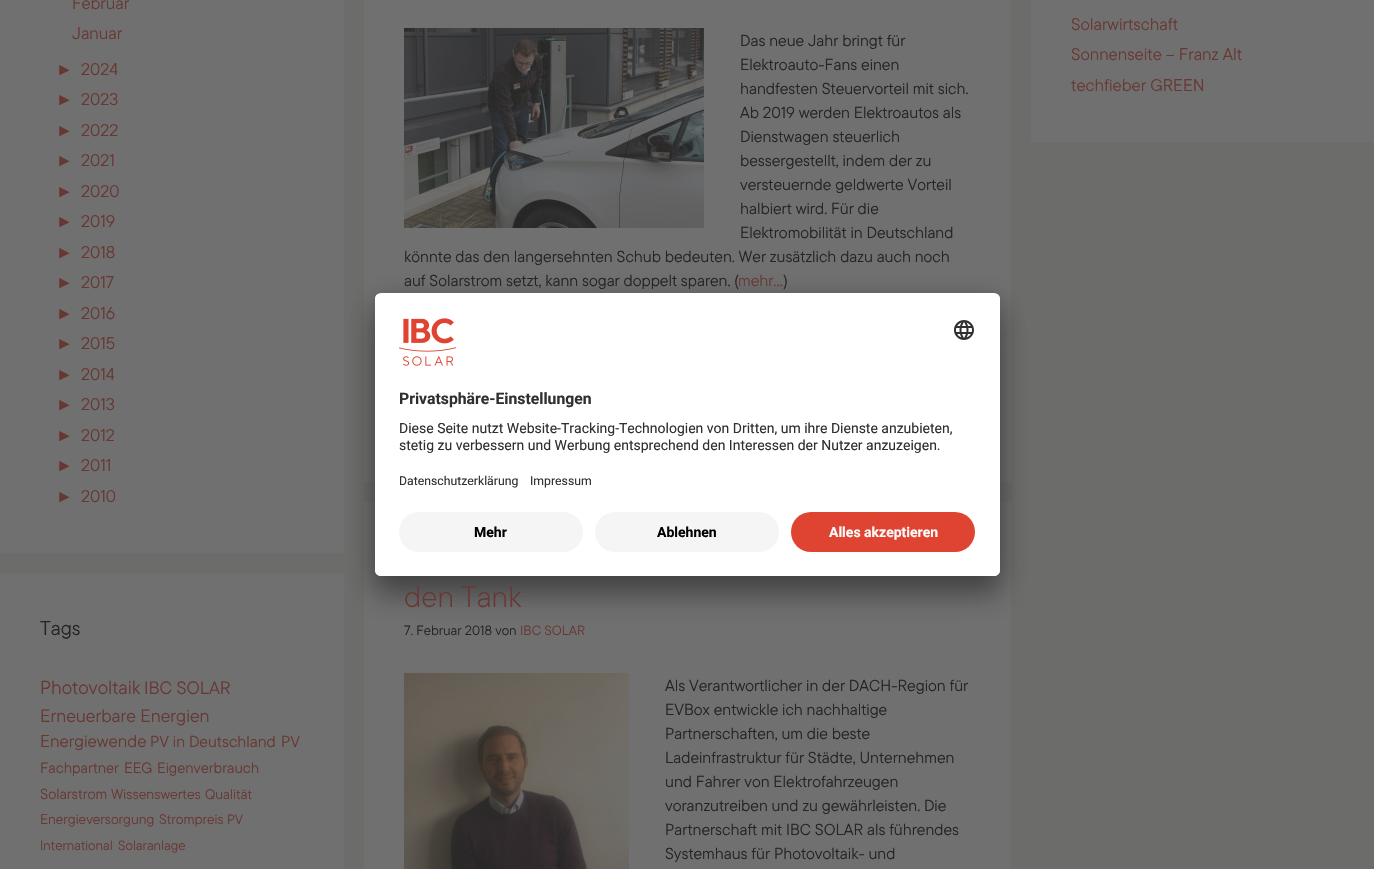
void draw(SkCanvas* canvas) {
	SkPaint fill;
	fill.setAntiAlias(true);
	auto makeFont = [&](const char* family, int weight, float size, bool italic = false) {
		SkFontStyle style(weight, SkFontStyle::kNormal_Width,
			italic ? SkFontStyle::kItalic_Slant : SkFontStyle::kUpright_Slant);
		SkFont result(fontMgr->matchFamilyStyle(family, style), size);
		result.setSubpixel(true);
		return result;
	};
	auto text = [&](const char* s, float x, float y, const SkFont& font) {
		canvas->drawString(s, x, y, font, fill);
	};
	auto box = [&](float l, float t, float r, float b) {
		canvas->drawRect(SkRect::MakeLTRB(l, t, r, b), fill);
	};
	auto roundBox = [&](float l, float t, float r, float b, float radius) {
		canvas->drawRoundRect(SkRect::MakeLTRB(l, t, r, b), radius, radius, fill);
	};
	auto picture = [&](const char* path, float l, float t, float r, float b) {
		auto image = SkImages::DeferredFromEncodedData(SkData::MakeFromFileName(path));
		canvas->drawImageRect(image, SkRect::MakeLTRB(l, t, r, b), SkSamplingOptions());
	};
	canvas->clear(0xFF6C6C6B);
	fill.setColor(0xFF707070);
	box(0, 0, 344, 553);
	box(0, 573, 344, 869);
	box(364, 0, 1011, 482);
	picture("image0.png", 404, 28, 704, 228);
	box(364, 502, 1011, 869);
	picture("image1.png", 404, 673, 629, 869);
	box(1031, 0, 1374, 142);
	fill.setColor(0x4D000000);
	fill.setMaskFilter(SkMaskFilter::MakeBlur(kNormal_SkBlurStyle, 14));
	canvas->drawRoundRect(SkRect::MakeLTRB(375, 313, 1000, 596), 6, 6, fill);
	fill.setMaskFilter(nullptr);
	fill.setColor(0x38000000);
	fill.setMaskFilter(SkMaskFilter::MakeBlur(kNormal_SkBlurStyle, 13));
	canvas->drawRoundRect(SkRect::MakeLTRB(375, 298, 1000, 581), 6, 6, fill);
	fill.setMaskFilter(nullptr);
	fill.setColor(0xFFFFFFFF);
	roundBox(375, 293, 1000, 576, 6);
	canvas->save();
	canvas->clipPath(SkPathBuilder().moveTo(381, 293).lineTo(994, 293).cubicTo(997.5f, 293, 1000, 295.5f, 1000, 299).lineTo(1000, 570).cubicTo(1000, 573.5f, 997.5f, 576, 994, 576).lineTo(381, 576).cubicTo(377.5f, 576, 375, 573.5f, 375, 570).lineTo(375, 299).cubicTo(375, 295.5f, 377.5f, 293, 381, 293).close().detach(), true);
	canvas->clipPath(SkPathBuilder().moveTo(381, 293).lineTo(994, 293).cubicTo(997.5f, 293, 1000, 295.5f, 1000, 299).lineTo(1000, 504).lineTo(375, 504).lineTo(375, 299).cubicTo(375, 295.5f, 377.5f, 293, 381, 293).close().detach(), true);
	box(375, 294, 1000, 504);
	canvas->restore();
	picture("image2.png", 399, 318, 456, 366);
	picture("image3.png", 954, 320, 974, 340);
	canvas->drawPath(SkPathBuilder().moveTo(375, 504).lineTo(1000, 504).lineTo(1000, 570).cubicTo(1000, 573.5f, 997.5f, 576, 994, 576).lineTo(381, 576).cubicTo(377.5f, 576, 375, 573.5f, 375, 570).close().detach(), fill);
	fill.setColor(0xFFF5F5F5);
	roundBox(399, 512, 583, 552, 20);
	roundBox(595, 512, 779, 552, 20);
	fill.setColor(0xFFDF4432);
	roundBox(791, 512, 975, 552, 20);
	auto font1 = makeFont("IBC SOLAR", 400, 17);
	fill.setColor(0xFF673833);
	text("Februar", 72, 9, font1);
	text("Januar", 72, 39, font1);
	auto font2 = makeFont("Liberation Sans", 400, 17);
	text("►", 56, 75, font2);
	text("2024", 81, 75, font1);
	text("►", 56, 105, font2);
	text("2023", 81, 105, font1);
	text("►", 56, 136, font2);
	text("2022", 81, 136, font1);
	text("►", 56, 166, font2);
	text("2021", 81, 166, font1);
	text("►", 56, 197, font2);
	text("2020", 81, 197, font1);
	text("►", 56, 227, font2);
	text("2019", 81, 227, font1);
	text("►", 56, 258, font2);
	text("2018", 81, 258, font1);
	text("►", 56, 288, font2);
	text("2017", 81, 288, font1);
	text("►", 56, 319, font2);
	text("2016", 81, 319, font1);
	text("►", 56, 349, font2);
	text("2015", 81, 349, font1);
	text("►", 56, 380, font2);
	text("2014", 81, 380, font1);
	text("►", 56, 410, font2);
	text("2013", 81, 410, font1);
	text("►", 56, 441, font2);
	text("2012", 81, 441, font1);
	text("►", 56, 471, font2);
	text("2011", 81, 471, font1);
	text("►", 56, 502, font2);
	text("2010", 81, 502, font1);
	auto font3 = makeFont("IBC SOLAR", 400, 20);
	fill.setColor(0xFF242424);
	text("Tags", 40, 635, font3);
	auto font4 = makeFont("IBC SOLAR", 400, 19);
	fill.setColor(0xFF673833);
	text("Photovoltaik", 40, 694, font4);
	auto font5 = makeFont("IBC SOLAR", 400, 18);
	text("IBC SOLAR", 144, 694, font5);
	text("Erneuerbare Energien", 40, 722, font5);
	auto font6 = makeFont("IBC SOLAR", 400, 17.25f);
	text("Energiewende", 40, 747, font6);
	auto font7 = makeFont("IBC SOLAR", 400, 16);
	text("PV in Deutschland", 150, 747, font7);
	text("PV", 281, 747, font7);
	auto font8 = makeFont("IBC SOLAR", 400, 15);
	text("Fachpartner", 40, 773, font8);
	text("EEG", 124, 773, font8);
	text("Eigenverbrauch", 157, 773, font8);
	auto font9 = makeFont("IBC SOLAR", 400, 14.75f);
	text("Solarstrom", 40, 799, font9);
	auto font10 = makeFont("IBC SOLAR", 400, 14.25f);
	text("Wissenswertes", 111, 799, font10);
	auto font11 = makeFont("IBC SOLAR", 400, 14);
	text("Qualität", 205, 799, font11);
	text("Energieversorgung", 40, 824, font11);
	text("Strompreis", 159, 824, font11);
	auto font12 = makeFont("IBC SOLAR", 400, 13.5f);
	text("PV", 227, 824, font12);
	text("International", 40, 850, font12);
	text("Solaranlage", 118, 850, font12);
	fill.setColor(0xFF242424);
	text("Das neue Jahr bringt für", 740, 46, font7);
	text("Elektroauto-Fans einen", 740, 70, font7);
	text("handfesten Steuervorteil mit sich.", 740, 94, font7);
	text("Ab 2019 werden Elektroautos als", 740, 118, font7);
	text("Dienstwagen steuerlich", 740, 142, font7);
	text("bessergestellt, indem der zu", 740, 166, font7);
	text("versteuernde geldwerte Vorteil", 740, 190, font7);
	text("halbiert wird. Für die", 740, 214, font7);
	text("Elektromobilität in Deutschland", 740, 238, font7);
	text("könnte das den langersehnten Schub bedeuten. Wer zusätzlich dazu auch noch", 404, 262, font7);
	text("auf Solarstrom setzt, kann sogar doppelt sparen. (", 404, 286, font7);
	fill.setColor(0xFF673833);
	text("mehr…", 738, 286, font7);
	fill.setColor(0xFF242424);
	text(")", 783, 286, font7);
	auto font13 = makeFont("IBC SOLAR", 300, 30);
	fill.setColor(0xFF673833);
	text("den Tank", 404, 607, font13);
	fill.setColor(0xFF242424);
	text("7. Februar 2018 von", 404, 635, font12);
	fill.setColor(0xFF673833);
	text("IBC SOLAR", 520, 635, font12);
	fill.setColor(0xFF242424);
	text("Als Verantwortlicher in der DACH-Region für", 665, 691, font7);
	text("EVBox entwickle ich nachhaltige", 665, 715, font7);
	text("Partnerschaften, um die beste", 665, 739, font7);
	text("Ladeinfrastruktur für Städte, Unternehmen", 665, 763, font7);
	text("und Fahrer von Elektrofahrzeugen", 665, 787, font7);
	text("voranzutreiben und zu gewährleisten. Die", 665, 811, font7);
	text("Partnerschaft mit IBC SOLAR als führendes", 665, 835, font7);
	text("Systemhaus für Photovoltaik- und", 665, 859, font7);
	fill.setColor(0xFF673833);
	text("Solarwirtschaft", 1071, 30, font1);
	text("Sonnenseite – Franz Alt", 1071, 60, font1);
	text("techfieber GREEN", 1071, 91, font1);
	auto font14 = makeFont("Roboto", 700, 15.75f);
	fill.setColor(0xFF303030);
	text("Privatsphäre-Einstellungen", 399, 404, font14);
	auto font15 = makeFont("Roboto", 400, 14);
	text("Diese Seite nutzt Website-Tracking-Technologien von Dritten, um ihre Dienste anzubieten,", 399, 433, font15);
	text("stetig zu verbessern und Werbung entsprechend den Interessen der Nutzer anzuzeigen.", 399, 450, font15);
	auto font16 = makeFont("Roboto", 400, 12.25f);
	text("Datenschutzerklärung", 399, 485, font16);
	text("Impressum", 530, 485, font16);
	auto font17 = makeFont("Roboto", 700, 14);
	fill.setColor(0xFF000000);
	text("Mehr", 474, 537, font17);
	text("Ablehnen", 657, 537, font17);
	fill.setColor(0xFFFAFAFA);
	text("Alles akzeptieren", 829, 537, font17);
}
